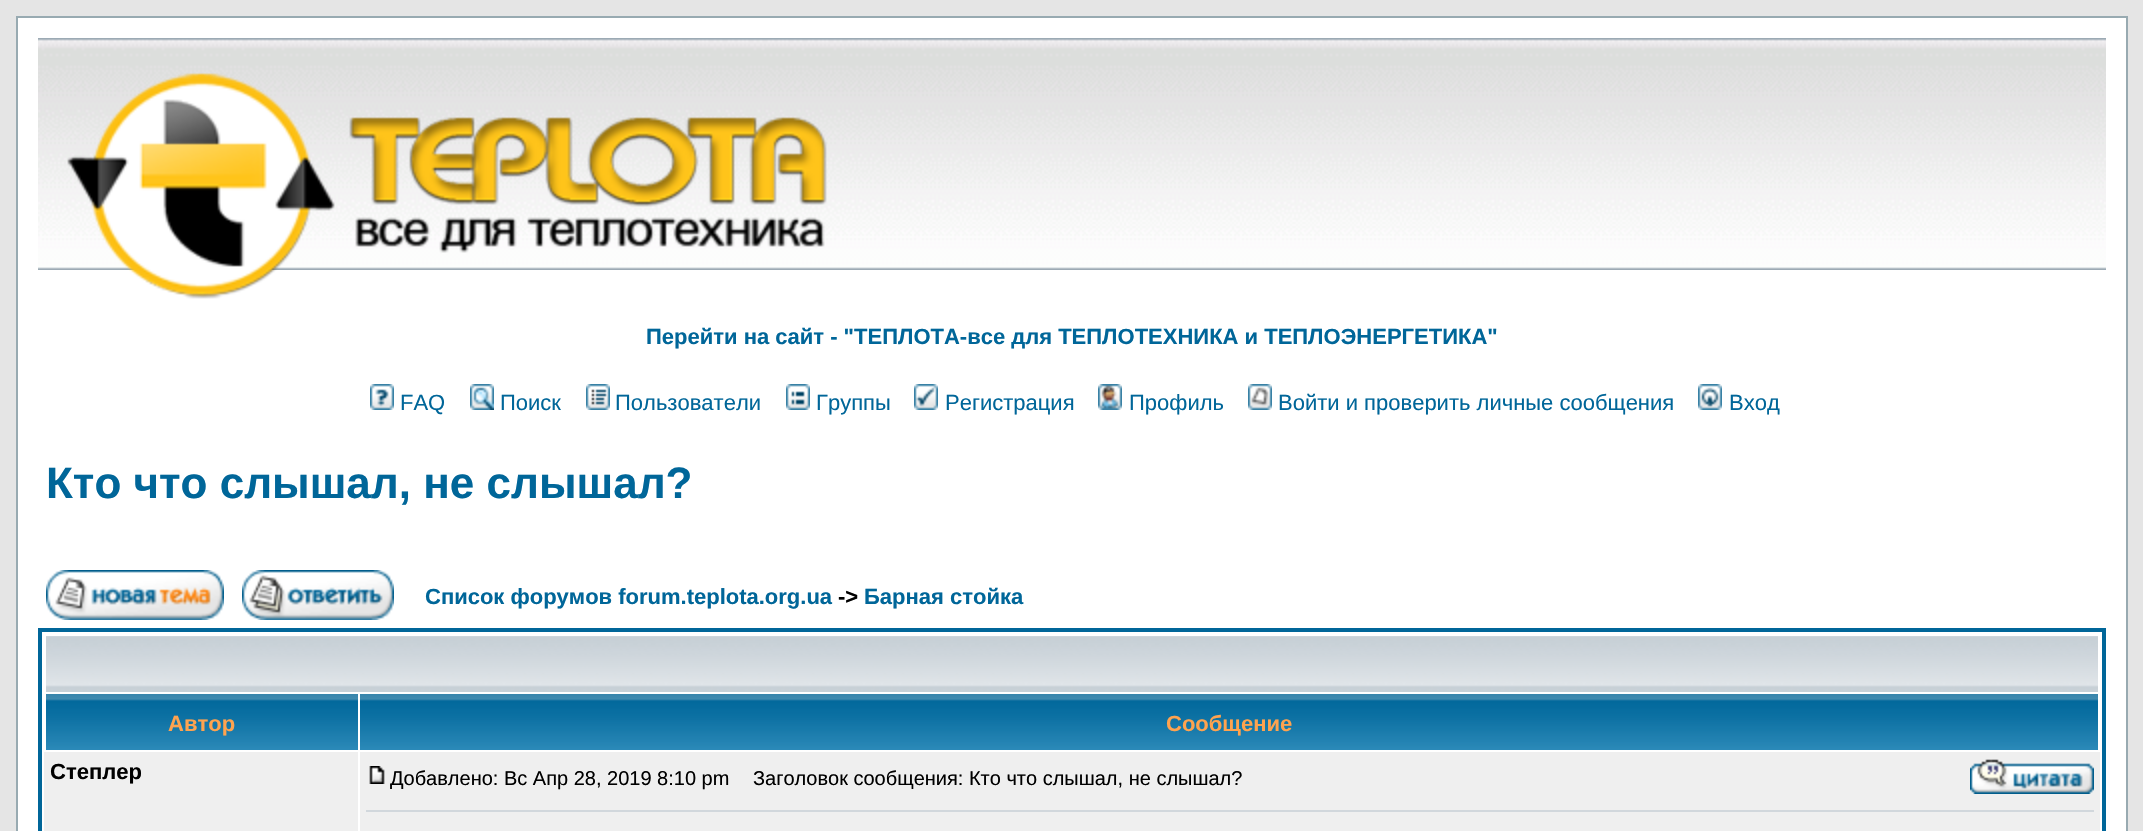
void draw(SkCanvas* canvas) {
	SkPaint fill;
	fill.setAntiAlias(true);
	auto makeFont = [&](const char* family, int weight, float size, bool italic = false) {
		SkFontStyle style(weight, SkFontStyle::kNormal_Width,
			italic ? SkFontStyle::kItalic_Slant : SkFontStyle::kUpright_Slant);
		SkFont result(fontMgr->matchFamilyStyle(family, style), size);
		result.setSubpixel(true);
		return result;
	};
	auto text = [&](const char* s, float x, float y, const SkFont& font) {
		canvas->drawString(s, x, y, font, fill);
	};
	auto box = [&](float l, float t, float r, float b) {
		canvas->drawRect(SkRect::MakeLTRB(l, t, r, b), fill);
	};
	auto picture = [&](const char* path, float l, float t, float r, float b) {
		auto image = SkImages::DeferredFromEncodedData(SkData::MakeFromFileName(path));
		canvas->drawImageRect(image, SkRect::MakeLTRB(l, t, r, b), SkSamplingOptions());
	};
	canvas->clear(0xFFE5E5E5);
	fill.setColor(0xFFFFFFFF);
	canvas->drawRect(SkRect::MakeLTRB(17, 17, 2127, 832), fill);
	fill.setStyle(SkPaint::kStroke_Style);
	fill.setStrokeWidth(2);
	fill.setColor(0xFF98AAB1);
	canvas->drawRect(SkRect::MakeLTRB(17, 17, 2127, 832), fill);
	picture("image0.png", 38, 38, 2106, 270);
	picture("image1.png", 67, 73, 827, 299);
	picture("image2.png", 370, 384, 394, 410);
	picture("image3.png", 470, 384, 494, 410);
	picture("image4.png", 586, 384, 610, 410);
	picture("image5.png", 786, 384, 810, 410);
	picture("image6.png", 914, 384, 938, 410);
	picture("image7.png", 1098, 384, 1122, 410);
	picture("image8.png", 1248, 384, 1272, 410);
	picture("image9.png", 1698, 384, 1722, 410);
	picture("image10.png", 46, 570, 224, 620);
	picture("image11.png", 242, 570, 394, 620);
	fill.setStrokeWidth(4);
	fill.setColor(0xFF006699);
	canvas->drawRect(SkRect::MakeLTRB(40, 630, 2104, 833), fill);
	picture("image12.png", 46, 636, 2098, 692);
	picture("image13.png", 46, 694, 358, 750);
	picture("image14.png", 360, 694, 2098, 750);
	fill.setStyle(SkPaint::kFill_Style);
	fill.setColor(0xFFEFEFEF);
	box(44, 752, 358, 831);
	box(360, 752, 2100, 831);
	picture("image15.png", 369, 766, 385, 784);
	picture("image16.png", 1970, 759, 2094, 794);
	fill.setColor(0xFFD1D7DC);
	box(366, 810, 2094, 812);
	auto font1 = makeFont("Liberation Sans", 700, 22);
	fill.setColor(0xFF006699);
	text("Перейти на cайт - \"ТЕПЛОТА-все для ТЕПЛОТЕХНИКА и ТЕПЛОЭНЕРГЕТИКА\"", 646, 344, font1);
	auto font2 = makeFont("Liberation Sans", 400, 22);
	text("FAQ", 400, 410, font2);
	text("Поиск", 500, 410, font2);
	text("Пользователи", 615, 410, font2);
	text("Группы", 816, 410, font2);
	text("Регистрация", 945, 410, font2);
	text("Профиль", 1129, 410, font2);
	text("Войти и проверить личные сообщения", 1278, 410, font2);
	text("Вход", 1729, 410, font2);
	auto font3 = makeFont("Liberation Sans", 700, 44);
	text("Кто что слышал, не слышал?", 46, 498, font3);
	text("Список форумов forum.teplota.org.ua", 425, 604, font1);
	fill.setColor(0xFF000000);
	text("->", 838, 604, font1);
	fill.setColor(0xFF006699);
	text("Барная стойка", 864, 604, font1);
	fill.setColor(0xFFFFA34F);
	text("Автор", 168, 731, font1);
	text("Сообщение", 1166, 731, font1);
	fill.setColor(0xFF000000);
	text("Степлер", 50, 779, font1);
	auto font4 = makeFont("Liberation Sans", 400, 20);
	text("Добавлено: Вс Апр 28, 2019 8:10 pm", 390, 785, font4);
	text("Заголовок сообщения: Кто что слышал, не слышал?", 753, 785, font4);
}
